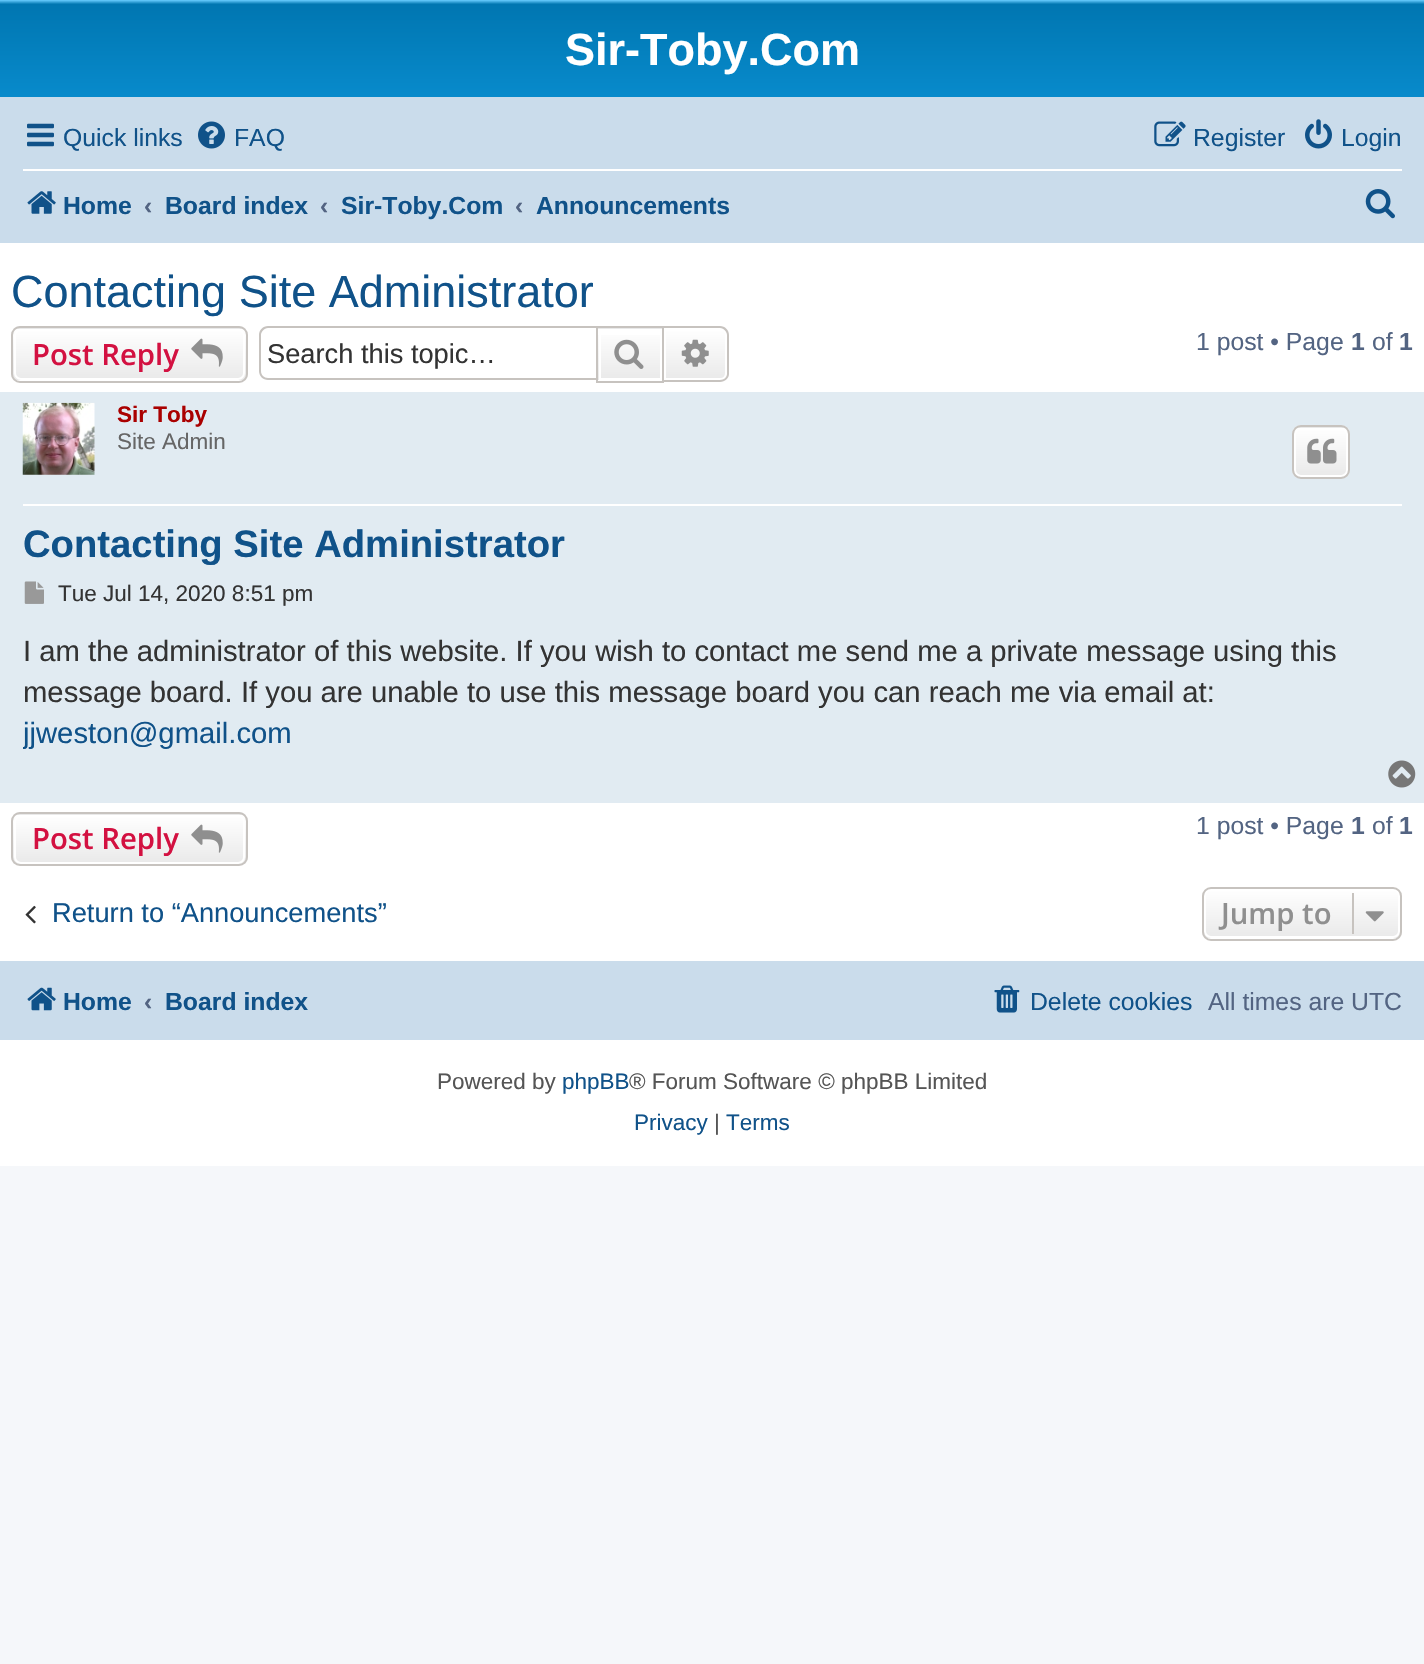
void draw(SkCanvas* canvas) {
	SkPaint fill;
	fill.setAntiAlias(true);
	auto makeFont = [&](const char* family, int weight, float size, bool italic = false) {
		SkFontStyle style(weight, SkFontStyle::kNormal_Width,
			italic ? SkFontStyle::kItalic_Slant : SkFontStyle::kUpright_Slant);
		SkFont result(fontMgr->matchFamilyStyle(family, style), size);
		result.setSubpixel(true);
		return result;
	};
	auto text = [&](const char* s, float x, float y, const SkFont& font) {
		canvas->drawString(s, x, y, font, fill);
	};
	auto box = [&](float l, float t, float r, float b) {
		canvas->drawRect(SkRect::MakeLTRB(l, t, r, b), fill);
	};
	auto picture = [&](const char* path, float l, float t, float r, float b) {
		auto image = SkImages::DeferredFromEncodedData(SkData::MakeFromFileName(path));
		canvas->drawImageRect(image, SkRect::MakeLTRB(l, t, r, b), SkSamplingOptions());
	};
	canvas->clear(0xFFF5F7FA);
	fill.setColor(0xFFFFFFFF);
	box(0, 243, 1424, 1166);
	{
		const SkColor colors[] = {0xFF6ACEFF, 0xFF0076B1, 0xFF12A3EB};
		const float stops[] = {0, 0.02f, 1};
		const SkPoint ends[] = {{712, 0}, {712, 207}};
		fill.setShader(SkGradientShader::MakeLinear(ends, colors, stops, 3, SkTileMode::kClamp));
		fill.setAlpha(255);
	}
	box(0, 0, 1424, 97);
	fill.setShader(nullptr);
	fill.setColor(0xFFCADCEB);
	box(0, 97, 1424, 243);
	picture("image0.png", 27, 123, 54, 147);
	picture("image1.png", 198, 121, 225, 149);
	picture("image2.png", 1154, 121, 1186, 147);
	picture("image3.png", 1305, 119, 1332, 149);
	fill.setColor(0xFFFFFFFF);
	box(23, 169, 1402, 171);
	picture("image4.png", 27, 191, 56, 214);
	picture("image5.png", 1365, 189, 1395, 219);
	canvas->save();
	canvas->clipPath(SkPathBuilder().moveTo(20, 326).lineTo(239, 326).cubicTo(244, 326, 248, 330, 248, 335).lineTo(248, 374).cubicTo(248, 379, 244, 383, 239, 383).lineTo(20, 383).cubicTo(15, 383, 11, 379, 11, 374).lineTo(11, 335).cubicTo(11, 330, 15, 326, 20, 326).close().detach(), true);
	{
		const SkColor colors[] = {0xFFFFFFFF, 0xFFE9E9E9};
		const float stops[] = {0, 1};
		const SkPoint ends[] = {{129, 277}, {129, 329}};
		fill.setShader(SkGradientShader::MakeLinear(ends, colors, stops, 2, SkTileMode::kClamp));
		fill.setAlpha(255);
	}
	box(11, 326, 248, 329);
	{
		const SkColor colors[] = {0xFFFFFFFF, 0xFFE9E9E9};
		const float stops[] = {0, 1};
		const SkPoint ends[] = {{129, 329}, {129, 380}};
		fill.setShader(SkGradientShader::MakeLinear(ends, colors, stops, 2, SkTileMode::kClamp));
		fill.setAlpha(255);
	}
	box(11, 329, 248, 380);
	canvas->restore();
	fill.setStyle(SkPaint::kStroke_Style);
	fill.setStrokeWidth(2);
	fill.setShader(nullptr);
	fill.setColor(0xFFFFFFFF);
	canvas->drawRoundRect(SkRect::MakeLTRB(15, 330, 244, 379), 6, 6, fill);
	fill.setColor(0xFFC7C3BF);
	canvas->drawRoundRect(SkRect::MakeLTRB(12, 327, 247, 382), 8, 8, fill);
	picture("image6.png", 191, 338, 223, 367);
	fill.setStyle(SkPaint::kFill_Style);
	canvas->drawPath(SkPathBuilder(SkPathFillType::kEvenOdd).moveTo(268, 326).lineTo(596, 326).lineTo(596, 380).lineTo(268, 380).cubicTo(263, 380, 259, 376, 259, 371).lineTo(259, 335).cubicTo(259, 330, 263, 326, 268, 326).close().moveTo(268, 328).lineTo(596, 328).lineTo(596, 378).lineTo(268, 378).cubicTo(264, 378, 261, 375, 261, 371).lineTo(261, 335).cubicTo(261, 332, 264, 328, 268, 328).close().detach(), fill);
	fill.setColor(0xFFE9E9E9);
	box(598, 328, 662, 329);
	{
		const SkColor colors[] = {0xFFFFFFFF, 0xFFE9E9E9};
		const float stops[] = {0, 1};
		const SkPoint ends[] = {{630, 329}, {630, 380}};
		fill.setShader(SkGradientShader::MakeLinear(ends, colors, stops, 2, SkTileMode::kClamp));
		fill.setAlpha(255);
	}
	box(598, 335, 660, 380);
	fill.setStyle(SkPaint::kStroke_Style);
	fill.setShader(nullptr);
	fill.setColor(0xFFFFFFFF);
	canvas->drawRect(SkRect::MakeLTRB(600, 330, 661, 379), fill);
	fill.setColor(0xFFC7C3BF);
	canvas->drawRect(SkRect::MakeLTRB(597, 327, 663, 382), fill);
	picture("image7.png", 614, 339, 644, 369);
	fill.setStyle(SkPaint::kFill_Style);
	{
		const SkColor colors[] = {0xFFFFFFFF, 0xFFE9E9E9};
		const float stops[] = {0, 1};
		const SkPoint ends[] = {{695, 329}, {695, 380}};
		fill.setShader(SkGradientShader::MakeLinear(ends, colors, stops, 2, SkTileMode::kClamp));
		fill.setAlpha(255);
	}
	canvas->drawPath(SkPathBuilder().moveTo(665, 330).lineTo(720, 330).cubicTo(723.5f, 330, 726, 332.5f, 726, 336).lineTo(726, 373).cubicTo(726, 376.5f, 723.5f, 379, 720, 379).lineTo(665, 379).close().detach(), fill);
	fill.setStyle(SkPaint::kStroke_Style);
	fill.setShader(nullptr);
	fill.setColor(0xFFFFFFFF);
	canvas->drawPath(SkPathBuilder().moveTo(665, 330).lineTo(720, 330).cubicTo(723.5f, 330, 726, 332.5f, 726, 336).lineTo(726, 373).cubicTo(726, 376.5f, 723.5f, 379, 720, 379).lineTo(665, 379).close().detach(), fill);
	fill.setStyle(SkPaint::kFill_Style);
	fill.setColor(0xFFC7C3BF);
	canvas->drawPath(SkPathBuilder(SkPathFillType::kEvenOdd).moveTo(664, 326).lineTo(720, 326).cubicTo(725, 326, 729, 330, 729, 335).lineTo(729, 374).cubicTo(729, 378, 725, 382, 720, 382).lineTo(664, 382).close().moveTo(664, 328).lineTo(720, 328).cubicTo(724, 328, 727, 332, 727, 335).lineTo(727, 374).cubicTo(727, 377, 724, 380, 720, 380).lineTo(664, 380).close().detach(), fill);
	picture("image8.png", 681, 339, 709, 367);
	fill.setColor(0xFFE1EBF2);
	box(0, 392, 1424, 803);
	fill.setColor(0xFFFFFFFF);
	box(23, 504, 1402, 506);
	picture("image9.png", 22, 402, 95, 475);
	canvas->save();
	canvas->clipPath(SkPathBuilder().moveTo(1301, 425).lineTo(1341, 425).cubicTo(1346, 425, 1350, 429, 1350, 434).lineTo(1350, 470).cubicTo(1350, 475, 1346, 479, 1341, 479).lineTo(1301, 479).cubicTo(1296, 479, 1292, 475, 1292, 470).lineTo(1292, 434).cubicTo(1292, 429, 1296, 425, 1301, 425).close().detach(), true);
	{
		const SkColor colors[] = {0xFFFFFFFF, 0xFFE9E9E9};
		const float stops[] = {0, 1};
		const SkPoint ends[] = {{1321, 378}, {1321, 428}};
		fill.setShader(SkGradientShader::MakeLinear(ends, colors, stops, 2, SkTileMode::kClamp));
		fill.setAlpha(255);
	}
	box(1292, 425, 1350, 428);
	{
		const SkColor colors[] = {0xFFFFFFFF, 0xFFE9E9E9};
		const float stops[] = {0, 1};
		const SkPoint ends[] = {{1321, 428}, {1321, 477}};
		fill.setShader(SkGradientShader::MakeLinear(ends, colors, stops, 2, SkTileMode::kClamp));
		fill.setAlpha(255);
	}
	box(1292, 428, 1350, 477);
	canvas->restore();
	fill.setStyle(SkPaint::kStroke_Style);
	fill.setShader(nullptr);
	fill.setColor(0xFFFFFFFF);
	canvas->drawRoundRect(SkRect::MakeLTRB(1295, 429, 1347, 476), 6, 6, fill);
	fill.setColor(0xFFC7C3BF);
	canvas->drawRoundRect(SkRect::MakeLTRB(1293, 426, 1349, 478), 8, 8, fill);
	picture("image10.png", 1307, 438, 1337, 464);
	picture("image11.png", 24, 581, 44, 604);
	picture("image12.png", 1388, 760, 1416, 788);
	canvas->save();
	canvas->clipPath(SkPathBuilder().moveTo(20, 812).lineTo(239, 812).cubicTo(244, 812, 248, 816, 248, 821).lineTo(248, 857).cubicTo(248, 862, 244, 866, 239, 866).lineTo(20, 866).cubicTo(15, 866, 11, 862, 11, 857).lineTo(11, 821).cubicTo(11, 816, 15, 812, 20, 812).close().detach(), true);
	fill.setStyle(SkPaint::kFill_Style);
	{
		const SkColor colors[] = {0xFFFFFFFF, 0xFFE9E9E9};
		const float stops[] = {0, 1};
		const SkPoint ends[] = {{129, 765}, {129, 815}};
		fill.setShader(SkGradientShader::MakeLinear(ends, colors, stops, 2, SkTileMode::kClamp));
		fill.setAlpha(255);
	}
	box(11, 812, 248, 815);
	{
		const SkColor colors[] = {0xFFFFFFFF, 0xFFE9E9E9};
		const float stops[] = {0, 1};
		const SkPoint ends[] = {{129, 815}, {129, 864}};
		fill.setShader(SkGradientShader::MakeLinear(ends, colors, stops, 2, SkTileMode::kClamp));
		fill.setAlpha(255);
	}
	box(11, 815, 248, 864);
	canvas->restore();
	fill.setStyle(SkPaint::kStroke_Style);
	fill.setShader(nullptr);
	fill.setColor(0xFFFFFFFF);
	canvas->drawRoundRect(SkRect::MakeLTRB(15, 816, 244, 863), 6, 6, fill);
	fill.setColor(0xFFC7C3BF);
	canvas->drawRoundRect(SkRect::MakeLTRB(12, 813, 247, 865), 8, 8, fill);
	picture("image13.png", 191, 824, 223, 853);
	picture("image14.png", 25, 905, 36, 924);
	canvas->save();
	canvas->clipPath(SkPathBuilder().moveTo(1211, 887).lineTo(1393, 887).cubicTo(1398, 887, 1402, 891, 1402, 896).lineTo(1402, 932).cubicTo(1402, 937, 1398, 941, 1393, 941).lineTo(1211, 941).cubicTo(1206, 941, 1202, 937, 1202, 932).lineTo(1202, 896).cubicTo(1202, 891, 1206, 887, 1211, 887).close().detach(), true);
	fill.setStyle(SkPaint::kFill_Style);
	{
		const SkColor colors[] = {0xFFFFFFFF, 0xFFE9E9E9};
		const float stops[] = {0, 1};
		const SkPoint ends[] = {{1302, 889}, {1302, 938}};
		fill.setShader(SkGradientShader::MakeLinear(ends, colors, stops, 2, SkTileMode::kClamp));
		fill.setAlpha(255);
	}
	box(1202, 889, 1402, 938);
	canvas->restore();
	fill.setStyle(SkPaint::kStroke_Style);
	fill.setShader(nullptr);
	fill.setColor(0xFFFFFFFF);
	canvas->drawRoundRect(SkRect::MakeLTRB(1205, 890, 1399, 937), 6, 6, fill);
	fill.setColor(0xFFC7C3BF);
	canvas->drawRoundRect(SkRect::MakeLTRB(1203, 888, 1401, 940), 8, 8, fill);
	fill.setStyle(SkPaint::kFill_Style);
	box(1352, 893, 1354, 934);
	picture("image15.png", 1365, 911, 1384, 922);
	fill.setColor(0xFFCADCEB);
	box(0, 961, 1424, 1040);
	picture("image16.png", 27, 987, 56, 1011);
	picture("image17.png", 994, 985, 1020, 1013);
	auto font1 = makeFont("Liberation Sans", 700, 45);
	fill.setColor(0xFFFFFFFF);
	text("Sir-Toby.Com", 565, 65, font1);
	auto font2 = makeFont("Liberation Sans", 400, 24.75f);
	fill.setColor(0xFF105289);
	text("Quick links", 63, 146, font2);
	text("FAQ", 234, 146, font2);
	text("Register", 1193, 146, font2);
	text("Login", 1341, 146, font2);
	auto font3 = makeFont("Liberation Sans", 700, 24.75f);
	text("Home", 63, 214, font3);
	fill.setColor(0xFF536482);
	text("‹", 144, 214, font3);
	fill.setColor(0xFF105289);
	text("Board index", 165, 214, font3);
	fill.setColor(0xFF536482);
	text("‹", 320, 214, font3);
	fill.setColor(0xFF105289);
	text("Sir-Toby.Com", 341, 214, font3);
	fill.setColor(0xFF536482);
	text("‹", 515, 214, font3);
	fill.setColor(0xFF105289);
	text("Announcements", 536, 214, font3);
	auto font4 = makeFont("Liberation Sans", 400, 45);
	text("Contacting Site Administrator", 11, 307, font4);
	auto font5 = makeFont("Open Sans", 600, 29.25f);
	fill.setColor(0xFFD31141);
	text("Post Reply", 32, 365, font5);
	auto font6 = makeFont("Liberation Sans", 400, 27.25f);
	fill.setColor(0xFF333333);
	text("Search this topic…", 267, 363, font6);
	fill.setColor(0xFF536482);
	text("1 post • Page", 1196, 350, font2);
	text("1", 1351, 350, font3);
	text("of", 1372, 350, font2);
	text("1", 1399, 350, font3);
	auto font7 = makeFont("Liberation Sans", 700, 22.5f);
	fill.setColor(0xFFAA0000);
	text("Sir Toby", 117, 422, font7);
	auto font8 = makeFont("Liberation Sans", 400, 22.5f);
	fill.setColor(0xFF666666);
	text("Site Admin", 117, 449, font8);
	auto font9 = makeFont("Liberation Sans", 700, 38.25f);
	fill.setColor(0xFF105289);
	text("Contacting Site Administrator", 23, 557, font9);
	fill.setColor(0xFF333333);
	text("Tue Jul 14, 2020 8:51 pm", 58, 601, font8);
	auto font10 = makeFont("Liberation Sans", 400, 29.25f);
	text("I am the administrator of this website. If you wish to contact me send me a private message using this", 23, 661, font10);
	text("message board. If you are unable to use this message board you can reach me via email at:", 23, 702, font10);
	canvas->save();
	canvas->clipRect(SkRect::MakeLTRB(23, 632, 1402, 758));
	fill.setColor(0xFF105289);
	text("jjweston@gmail.com", 23, 743, font10);
	canvas->restore();
	fill.setColor(0xFFD31141);
	text("Post Reply", 32, 849, font5);
	fill.setColor(0xFF536482);
	text("1 post • Page", 1196, 834, font2);
	text("1", 1351, 834, font3);
	text("of", 1372, 834, font2);
	text("1", 1399, 834, font3);
	fill.setColor(0xFF105289);
	text("Return to “Announcements”", 52, 922, font6);
	fill.setColor(0xFF8F8F8F);
	text("Jump to", 1221, 924, font5);
	fill.setColor(0xFF105289);
	text("Home", 63, 1010, font3);
	fill.setColor(0xFF536482);
	text("‹", 144, 1010, font3);
	fill.setColor(0xFF105289);
	text("Board index", 165, 1010, font3);
	text("Delete cookies", 1030, 1010, font2);
	fill.setColor(0xFF536482);
	text("All times are UTC", 1208, 1010, font2);
	fill.setColor(0xFF555555);
	text("Powered by", 437, 1089, font8);
	fill.setColor(0xFF105289);
	text("phpBB", 562, 1089, font8);
	fill.setColor(0xFF555555);
	text("® Forum Software © phpBB Limited", 629, 1089, font8);
	fill.setColor(0xFF105289);
	text("Privacy", 634, 1130, font8);
	fill.setColor(0xFF555555);
	text("|", 714, 1130, font8);
	fill.setColor(0xFF105289);
	text("Terms", 726, 1130, font8);
}
